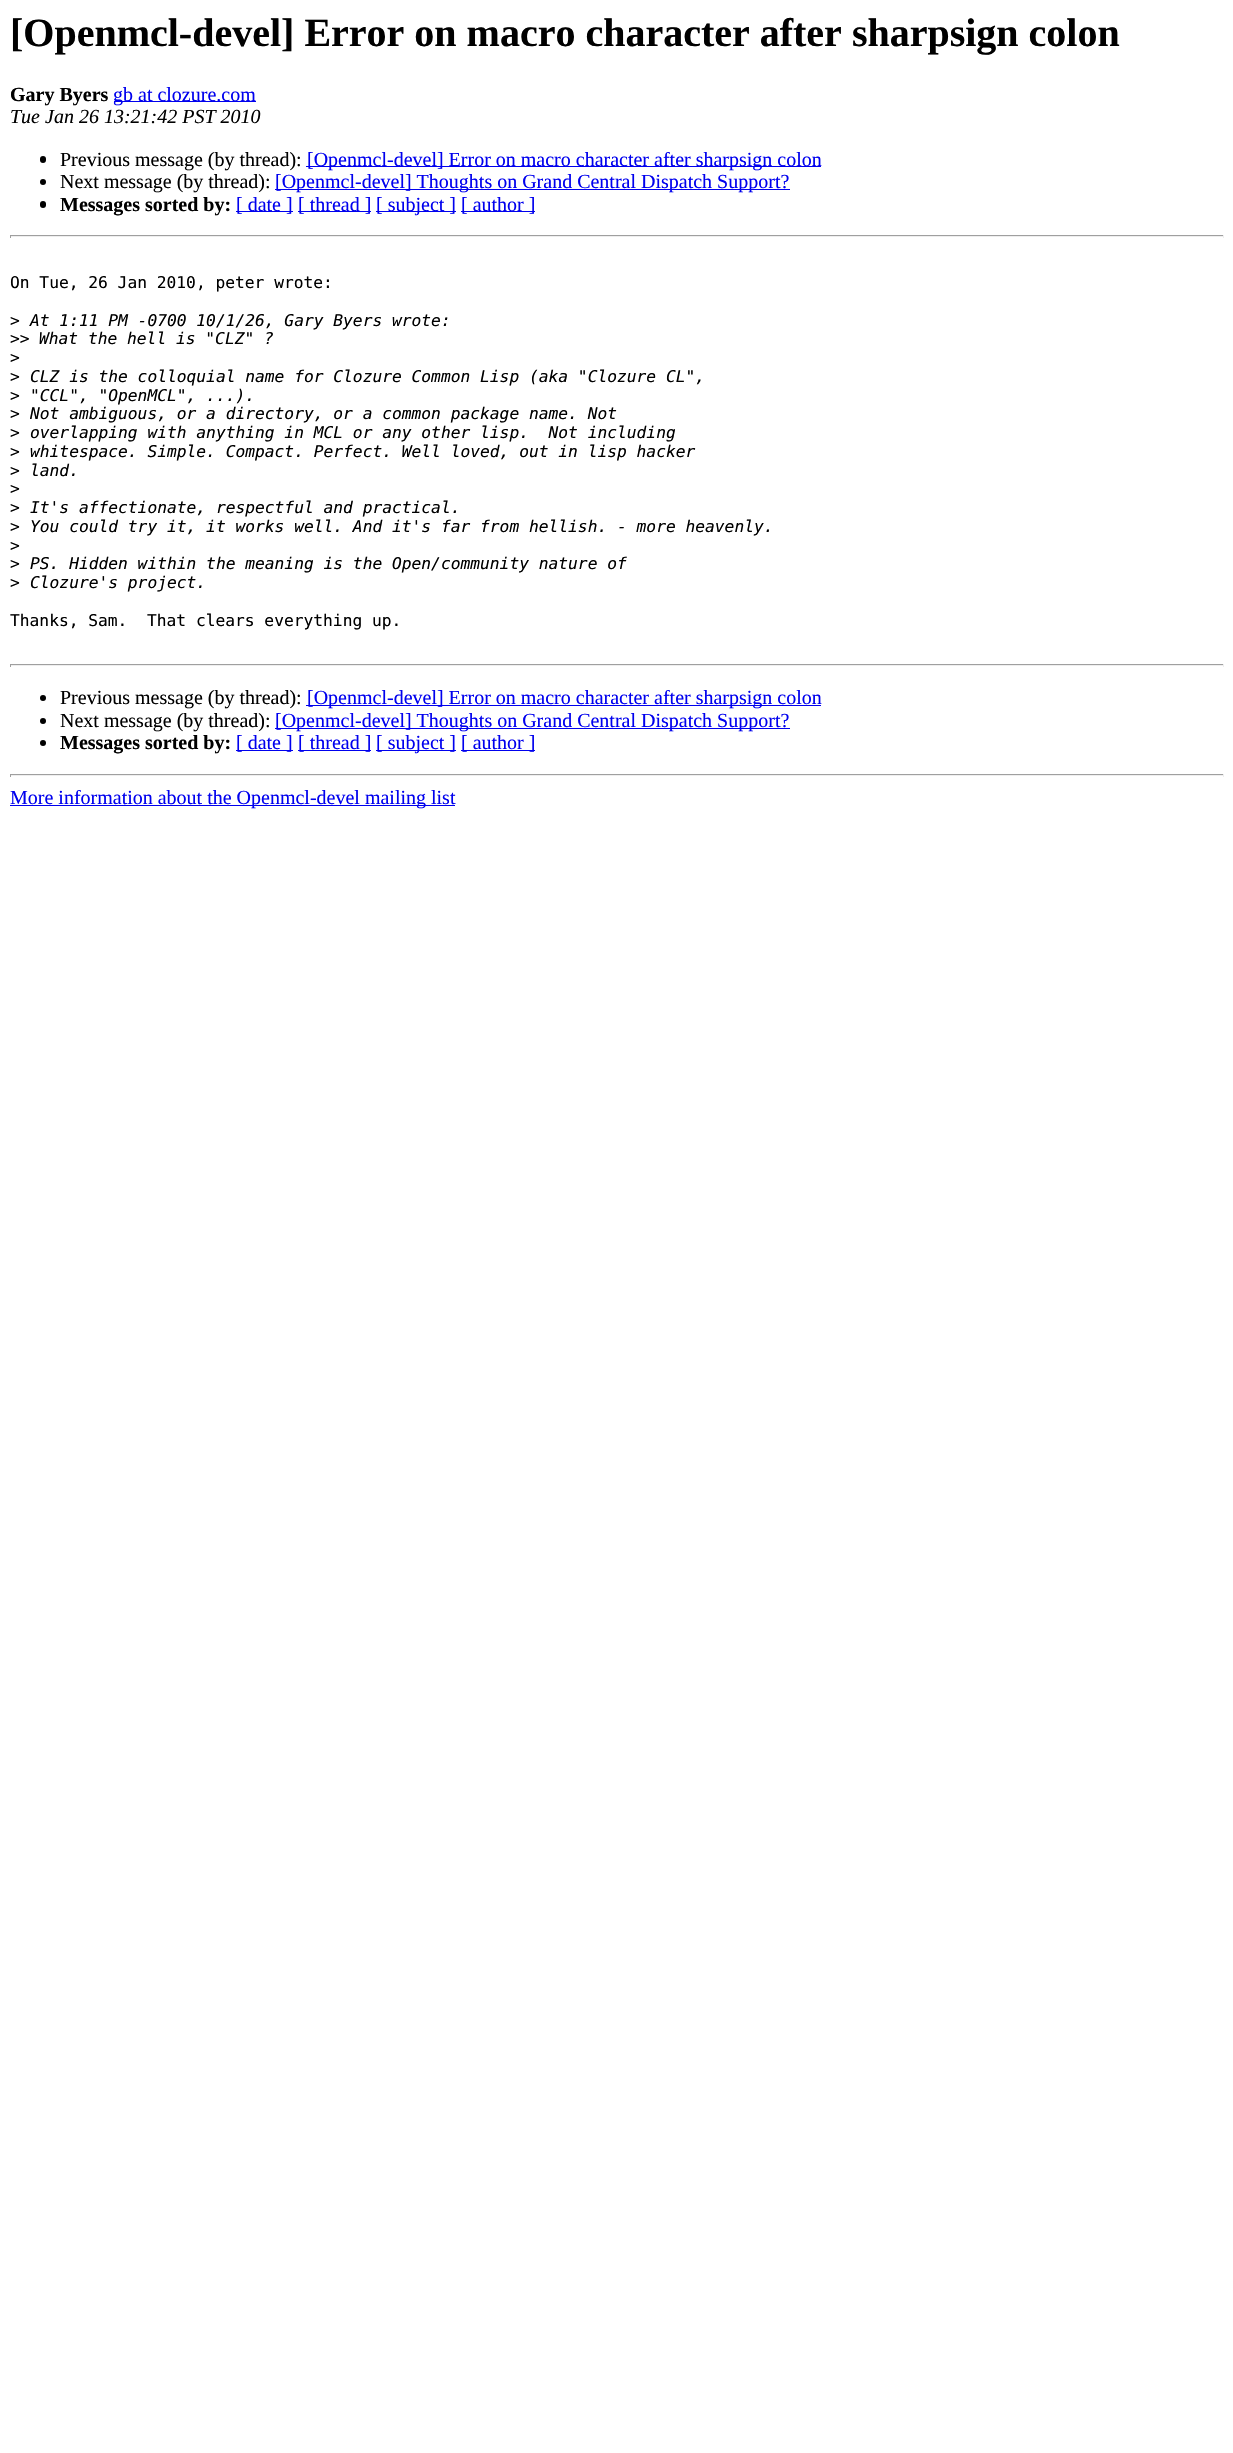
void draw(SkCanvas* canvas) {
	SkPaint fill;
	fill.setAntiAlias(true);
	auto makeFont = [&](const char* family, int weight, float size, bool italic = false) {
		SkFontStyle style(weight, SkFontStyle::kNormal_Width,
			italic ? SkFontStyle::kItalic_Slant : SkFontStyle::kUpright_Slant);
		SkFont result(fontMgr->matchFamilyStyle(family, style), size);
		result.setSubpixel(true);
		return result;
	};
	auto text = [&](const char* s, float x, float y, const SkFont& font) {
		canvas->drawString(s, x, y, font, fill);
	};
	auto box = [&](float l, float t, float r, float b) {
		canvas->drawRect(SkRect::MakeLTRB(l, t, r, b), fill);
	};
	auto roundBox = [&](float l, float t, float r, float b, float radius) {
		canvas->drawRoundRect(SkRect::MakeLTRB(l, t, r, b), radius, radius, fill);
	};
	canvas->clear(0xFFFFFFFF);
	fill.setColor(0xFF0000EE);
	box(114, 101, 256, 102);
	fill.setColor(0xFF000000);
	roundBox(40, 156, 46, 163, 3);
	fill.setColor(0xFF0000EE);
	box(306, 166, 821, 167);
	fill.setColor(0xFF000000);
	canvas->drawCircle(43, 182, 3, fill);
	fill.setColor(0xFF0000EE);
	box(275, 189, 790, 190);
	fill.setColor(0xFF000000);
	roundBox(40, 201, 46, 208, 3);
	fill.setColor(0xFF0000EE);
	box(236, 211, 293, 212);
	box(298, 211, 371, 212);
	box(376, 211, 456, 212);
	box(461, 211, 535, 212);
	fill.setColor(0xFF9F9F9F);
	box(10, 235, 1224, 236);
	fill.setColor(0xFFEEEEEE);
	box(1223, 235, 1224, 238);
	box(10, 236, 1224, 237);
	fill.setColor(0xFF9F9F9F);
	box(10, 235, 11, 238);
	box(10, 664, 1224, 665);
	fill.setColor(0xFFEEEEEE);
	box(1223, 664, 1224, 667);
	box(10, 665, 1224, 666);
	fill.setColor(0xFF9F9F9F);
	box(10, 664, 11, 667);
	fill.setColor(0xFF000000);
	canvas->drawCircle(43, 698, 3, fill);
	fill.setColor(0xFF0000EE);
	box(306, 705, 821, 706);
	fill.setColor(0xFF000000);
	canvas->drawCircle(43, 721, 3, fill);
	fill.setColor(0xFF0000EE);
	box(275, 728, 790, 729);
	fill.setColor(0xFF000000);
	canvas->drawCircle(43, 743, 3, fill);
	fill.setColor(0xFF0000EE);
	box(236, 750, 293, 751);
	box(298, 750, 371, 751);
	box(376, 750, 456, 751);
	box(461, 750, 535, 751);
	fill.setColor(0xFF9F9F9F);
	box(10, 774, 1224, 775);
	fill.setColor(0xFFEEEEEE);
	box(1223, 774, 1224, 777);
	box(10, 775, 1224, 776);
	fill.setColor(0xFF9F9F9F);
	box(10, 774, 11, 777);
	fill.setColor(0xFF0000EE);
	box(10, 805, 455, 806);
	auto font1 = makeFont("Liberation Serif", 700, 40);
	fill.setColor(0xFF000000);
	text("[Openmcl-devel] Error on macro character after sharpsign colon", 10, 46, font1);
	auto font2 = makeFont("Liberation Serif", 700, 20);
	text("Gary Byers", 10, 101, font2);
	auto font3 = makeFont("Liberation Serif", 400, 20);
	fill.setColor(0xFF0000EE);
	text("gb at clozure.com", 113, 101, font3);
	auto font4 = makeFont("Liberation Serif", 400, 20, true);
	fill.setColor(0xFF000000);
	text("Tue Jan 26 13:21:42 PST 2010", 10, 123, font4);
	text("Previous message (by thread):", 60, 166, font3);
	fill.setColor(0xFF0000EE);
	text("[Openmcl-devel] Error on macro character after sharpsign colon", 307, 166, font3);
	fill.setColor(0xFF000000);
	text("Next message (by thread):", 60, 188, font3);
	fill.setColor(0xFF0000EE);
	text("[Openmcl-devel] Thoughts on Grand Central Dispatch Support?", 275, 188, font3);
	fill.setColor(0xFF000000);
	text("Messages sorted by:", 60, 211, font2);
	fill.setColor(0xFF0000EE);
	text("[ date ]", 236, 211, font3);
	text("[ thread ]", 298, 211, font3);
	text("[ subject ]", 376, 211, font3);
	text("[ author ]", 461, 211, font3);
	auto font5 = makeFont("DejaVu Sans Mono", 400, 16.25f);
	fill.setColor(0xFF000000);
	text("On Tue, 26 Jan 2010, peter wrote:", 10, 288, font5);
	text(">", 10, 326, font5);
	auto font6 = makeFont("DejaVu Sans Mono", 400, 16.25f, true);
	text("At 1:11 PM -0700 10/1/26, Gary Byers wrote:", 30, 326, font6);
	text(">>", 10, 344, font5);
	text("What the hell is \"CLZ\" ?", 39, 344, font6);
	text(">", 10, 363, font5);
	text(">", 10, 382, font5);
	text("CLZ is the colloquial name for Clozure Common Lisp (aka \"Clozure CL\",", 30, 382, font6);
	text(">", 10, 401, font5);
	text("\"CCL\", \"OpenMCL\", ...).", 30, 401, font6);
	text(">", 10, 419, font5);
	text("Not ambiguous, or a directory, or a common package name. Not", 30, 419, font6);
	text(">", 10, 438, font5);
	text("overlapping with anything in MCL or any other lisp.  Not including", 30, 438, font6);
	text(">", 10, 457, font5);
	text("whitespace. Simple. Compact. Perfect. Well loved, out in lisp hacker", 30, 457, font6);
	text(">", 10, 476, font5);
	text("land.", 30, 476, font6);
	text(">", 10, 494, font5);
	text(">", 10, 513, font5);
	text("It's affectionate, respectful and practical.", 30, 513, font6);
	text(">", 10, 532, font5);
	text("You could try it, it works well. And it's far from hellish. - more heavenly.", 30, 532, font6);
	text(">", 10, 551, font5);
	text(">", 10, 569, font5);
	text("PS. Hidden within the meaning is the Open/community nature of", 30, 569, font6);
	text(">", 10, 588, font5);
	text("Clozure's project.", 30, 588, font6);
	text("Thanks, Sam.  That clears everything up.", 10, 626, font5);
	text("Previous message (by thread):", 60, 704, font3);
	fill.setColor(0xFF0000EE);
	text("[Openmcl-devel] Error on macro character after sharpsign colon", 307, 704, font3);
	fill.setColor(0xFF000000);
	text("Next message (by thread):", 60, 727, font3);
	fill.setColor(0xFF0000EE);
	text("[Openmcl-devel] Thoughts on Grand Central Dispatch Support?", 275, 727, font3);
	fill.setColor(0xFF000000);
	text("Messages sorted by:", 60, 749, font2);
	fill.setColor(0xFF0000EE);
	text("[ date ]", 236, 749, font3);
	text("[ thread ]", 298, 749, font3);
	text("[ subject ]", 376, 749, font3);
	text("[ author ]", 461, 749, font3);
	text("More information about the Openmcl-devel mailing list", 10, 804, font3);
}
